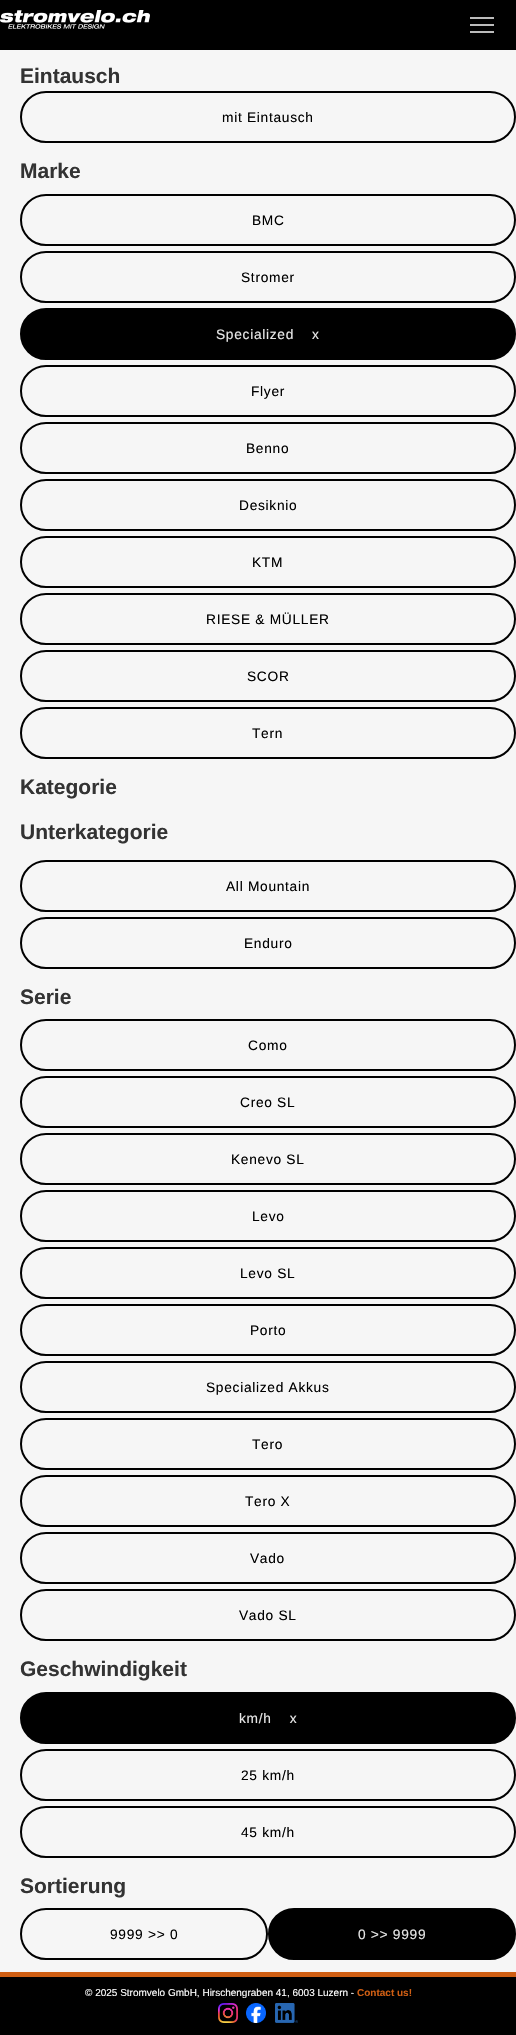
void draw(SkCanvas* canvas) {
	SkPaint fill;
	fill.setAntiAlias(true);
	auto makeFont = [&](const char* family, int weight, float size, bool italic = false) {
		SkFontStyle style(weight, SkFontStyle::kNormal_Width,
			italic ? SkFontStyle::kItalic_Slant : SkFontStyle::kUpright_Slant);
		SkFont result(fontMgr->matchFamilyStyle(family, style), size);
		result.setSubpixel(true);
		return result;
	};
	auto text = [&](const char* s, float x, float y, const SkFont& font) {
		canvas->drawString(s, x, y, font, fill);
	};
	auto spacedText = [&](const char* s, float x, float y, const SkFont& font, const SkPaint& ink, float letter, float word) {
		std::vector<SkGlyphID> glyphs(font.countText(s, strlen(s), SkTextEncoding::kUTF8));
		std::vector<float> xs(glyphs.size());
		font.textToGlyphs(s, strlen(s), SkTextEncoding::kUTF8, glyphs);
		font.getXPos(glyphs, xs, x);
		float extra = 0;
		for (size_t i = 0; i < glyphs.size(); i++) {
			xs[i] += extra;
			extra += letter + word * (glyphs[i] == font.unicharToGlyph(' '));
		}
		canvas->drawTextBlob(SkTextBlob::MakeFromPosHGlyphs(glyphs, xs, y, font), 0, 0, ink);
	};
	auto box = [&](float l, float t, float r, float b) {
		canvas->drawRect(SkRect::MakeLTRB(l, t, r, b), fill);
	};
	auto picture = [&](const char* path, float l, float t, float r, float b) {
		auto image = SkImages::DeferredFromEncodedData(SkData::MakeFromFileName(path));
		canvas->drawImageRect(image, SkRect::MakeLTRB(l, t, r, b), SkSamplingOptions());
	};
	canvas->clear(0xFFF6F6F6);
	fill.setColor(0xFF000000);
	box(0, 0, 516, 50);
	picture("image0.png", 0, 10, 150, 29);
	fill.setColor(0xFFBBBBBB);
	box(470, 24, 494, 26);
	box(470, 17, 494, 19);
	box(470, 31, 494, 33);
	fill.setStyle(SkPaint::kStroke_Style);
	fill.setStrokeWidth(2);
	fill.setColor(0xFF000000);
	canvas->drawRoundRect(SkRect::MakeLTRB(21, 92, 515, 142), 25, 25, fill);
	canvas->drawRoundRect(SkRect::MakeLTRB(21, 195, 515, 245), 25, 25, fill);
	canvas->drawRoundRect(SkRect::MakeLTRB(21, 252, 515, 302), 25, 25, fill);
	fill.setStyle(SkPaint::kFill_Style);
	canvas->drawRoundRect(SkRect::MakeLTRB(21, 309, 515, 359), 25, 25, fill);
	fill.setStyle(SkPaint::kStroke_Style);
	canvas->drawRoundRect(SkRect::MakeLTRB(21, 309, 515, 359), 25, 25, fill);
	canvas->drawRoundRect(SkRect::MakeLTRB(21, 366, 515, 416), 25, 25, fill);
	canvas->drawRoundRect(SkRect::MakeLTRB(21, 423, 515, 473), 25, 25, fill);
	canvas->drawRoundRect(SkRect::MakeLTRB(21, 480, 515, 530), 25, 25, fill);
	canvas->drawRoundRect(SkRect::MakeLTRB(21, 537, 515, 587), 25, 25, fill);
	canvas->drawRoundRect(SkRect::MakeLTRB(21, 594, 515, 644), 25, 25, fill);
	canvas->drawRoundRect(SkRect::MakeLTRB(21, 651, 515, 701), 25, 25, fill);
	canvas->drawRoundRect(SkRect::MakeLTRB(21, 708, 515, 758), 25, 25, fill);
	canvas->drawRoundRect(SkRect::MakeLTRB(21, 861, 515, 911), 25, 25, fill);
	canvas->drawRoundRect(SkRect::MakeLTRB(21, 918, 515, 968), 25, 25, fill);
	canvas->drawRoundRect(SkRect::MakeLTRB(21, 1020, 515, 1070), 25, 25, fill);
	canvas->drawRoundRect(SkRect::MakeLTRB(21, 1077, 515, 1127), 25, 25, fill);
	canvas->drawRoundRect(SkRect::MakeLTRB(21, 1134, 515, 1184), 25, 25, fill);
	canvas->drawRoundRect(SkRect::MakeLTRB(21, 1191, 515, 1241), 25, 25, fill);
	canvas->drawRoundRect(SkRect::MakeLTRB(21, 1248, 515, 1298), 25, 25, fill);
	canvas->drawRoundRect(SkRect::MakeLTRB(21, 1305, 515, 1355), 25, 25, fill);
	canvas->drawRoundRect(SkRect::MakeLTRB(21, 1362, 515, 1412), 25, 25, fill);
	canvas->drawRoundRect(SkRect::MakeLTRB(21, 1419, 515, 1469), 25, 25, fill);
	canvas->drawRoundRect(SkRect::MakeLTRB(21, 1476, 515, 1526), 25, 25, fill);
	canvas->drawRoundRect(SkRect::MakeLTRB(21, 1533, 515, 1583), 25, 25, fill);
	canvas->drawRoundRect(SkRect::MakeLTRB(21, 1590, 515, 1640), 25, 25, fill);
	fill.setStyle(SkPaint::kFill_Style);
	canvas->drawRoundRect(SkRect::MakeLTRB(21, 1693, 515, 1743), 25, 25, fill);
	fill.setStyle(SkPaint::kStroke_Style);
	canvas->drawRoundRect(SkRect::MakeLTRB(21, 1693, 515, 1743), 25, 25, fill);
	canvas->drawRoundRect(SkRect::MakeLTRB(21, 1750, 515, 1800), 25, 25, fill);
	canvas->drawRoundRect(SkRect::MakeLTRB(21, 1807, 515, 1857), 25, 25, fill);
	canvas->drawRoundRect(SkRect::MakeLTRB(21, 1909, 267, 1959), 25, 25, fill);
	fill.setStyle(SkPaint::kFill_Style);
	canvas->drawRoundRect(SkRect::MakeLTRB(269, 1909, 515, 1959), 25, 25, fill);
	fill.setStyle(SkPaint::kStroke_Style);
	canvas->drawRoundRect(SkRect::MakeLTRB(269, 1909, 515, 1959), 25, 25, fill);
	fill.setStyle(SkPaint::kFill_Style);
	box(0, 1977, 516, 2035);
	fill.setColor(0xFFCF5E13);
	box(0, 1972, 516, 1977);
	picture("image1.png", 218, 2003, 238, 2023);
	picture("image2.png", 246, 2003, 266, 2023);
	picture("image3.png", 275, 2003, 298, 2023);
	auto font1 = makeFont("Liberation Sans", 700, 21);
	fill.setColor(0xFF333333);
	text("Eintausch", 20, 83, font1);
	auto font2 = makeFont("Liberation Sans", 400, 13.75f);
	fill.setColor(0xFF000000);
	spacedText("mit Eintausch", 222, 122, font2, fill, 0.7f, 0);
	fill.setColor(0xFF333333);
	text("Marke", 20, 178, font1);
	fill.setColor(0xFF000000);
	spacedText("BMC", 252, 225, font2, fill, 0.7f, 0);
	spacedText("Stromer", 241, 282, font2, fill, 0.7f, 0);
	fill.setColor(0xFFE6E6E6);
	spacedText("Specialized    x", 216, 339, font2, fill, 0.7f, 0);
	fill.setColor(0xFF000000);
	spacedText("Flyer", 251, 396, font2, fill, 0.7f, 0);
	spacedText("Benno", 246, 453, font2, fill, 0.7f, 0);
	spacedText("Desiknio", 239, 510, font2, fill, 0.7f, 0);
	spacedText("KTM", 252, 567, font2, fill, 0.7f, 0);
	spacedText("RIESE & MÜLLER", 206, 624, font2, fill, 0.7f, 0);
	spacedText("SCOR", 247, 681, font2, fill, 0.7f, 0);
	spacedText("Tern", 252, 738, font2, fill, 0.7f, 0);
	fill.setColor(0xFF333333);
	text("Kategorie", 20, 794, font1);
	text("Unterkategorie", 20, 839, font1);
	fill.setColor(0xFF000000);
	spacedText("All Mountain", 226, 891, font2, fill, 0.7f, 0);
	spacedText("Enduro", 244, 948, font2, fill, 0.7f, 0);
	fill.setColor(0xFF333333);
	text("Serie", 20, 1004, font1);
	fill.setColor(0xFF000000);
	spacedText("Como", 248, 1050, font2, fill, 0.7f, 0);
	spacedText("Creo SL", 240, 1107, font2, fill, 0.7f, 0);
	spacedText("Kenevo SL", 231, 1164, font2, fill, 0.7f, 0);
	spacedText("Levo", 252, 1221, font2, fill, 0.7f, 0);
	spacedText("Levo SL", 240, 1278, font2, fill, 0.7f, 0);
	spacedText("Porto", 250, 1335, font2, fill, 0.7f, 0);
	spacedText("Specialized Akkus", 206, 1392, font2, fill, 0.7f, 0);
	spacedText("Tero", 252, 1449, font2, fill, 0.7f, 0);
	spacedText("Tero X", 245, 1506, font2, fill, 0.7f, 0);
	spacedText("Vado", 250, 1563, font2, fill, 0.7f, 0);
	spacedText("Vado SL", 239, 1620, font2, fill, 0.7f, 0);
	fill.setColor(0xFF333333);
	text("Geschwindigkeit", 20, 1676, font1);
	fill.setColor(0xFFE6E6E6);
	spacedText("km/h    x", 239, 1723, font2, fill, 0.7f, 0);
	fill.setColor(0xFF000000);
	spacedText("25 km/h", 241, 1780, font2, fill, 0.7f, 0);
	spacedText("45 km/h", 241, 1837, font2, fill, 0.7f, 0);
	fill.setColor(0xFF333333);
	text("Sortierung", 20, 1893, font1);
	fill.setColor(0xFF000000);
	spacedText("9999 >> 0", 110, 1939, font2, fill, 0.7f, 0);
	fill.setColor(0xFFE6E6E6);
	spacedText("0 >> 9999", 358, 1939, font2, fill, 0.7f, 0);
	auto font3 = makeFont("Liberation Sans", 400, 10);
	fill.setColor(0xFFFFFFFF);
	text("© 2025 Stromvelo GmbH, Hirschengraben 41, 6003 Luzern -", 85, 1996, font3);
	auto font4 = makeFont("Liberation Sans", 700, 10);
	fill.setColor(0xFFCF5E13);
	text("Contact us!", 357, 1996, font4);
}
